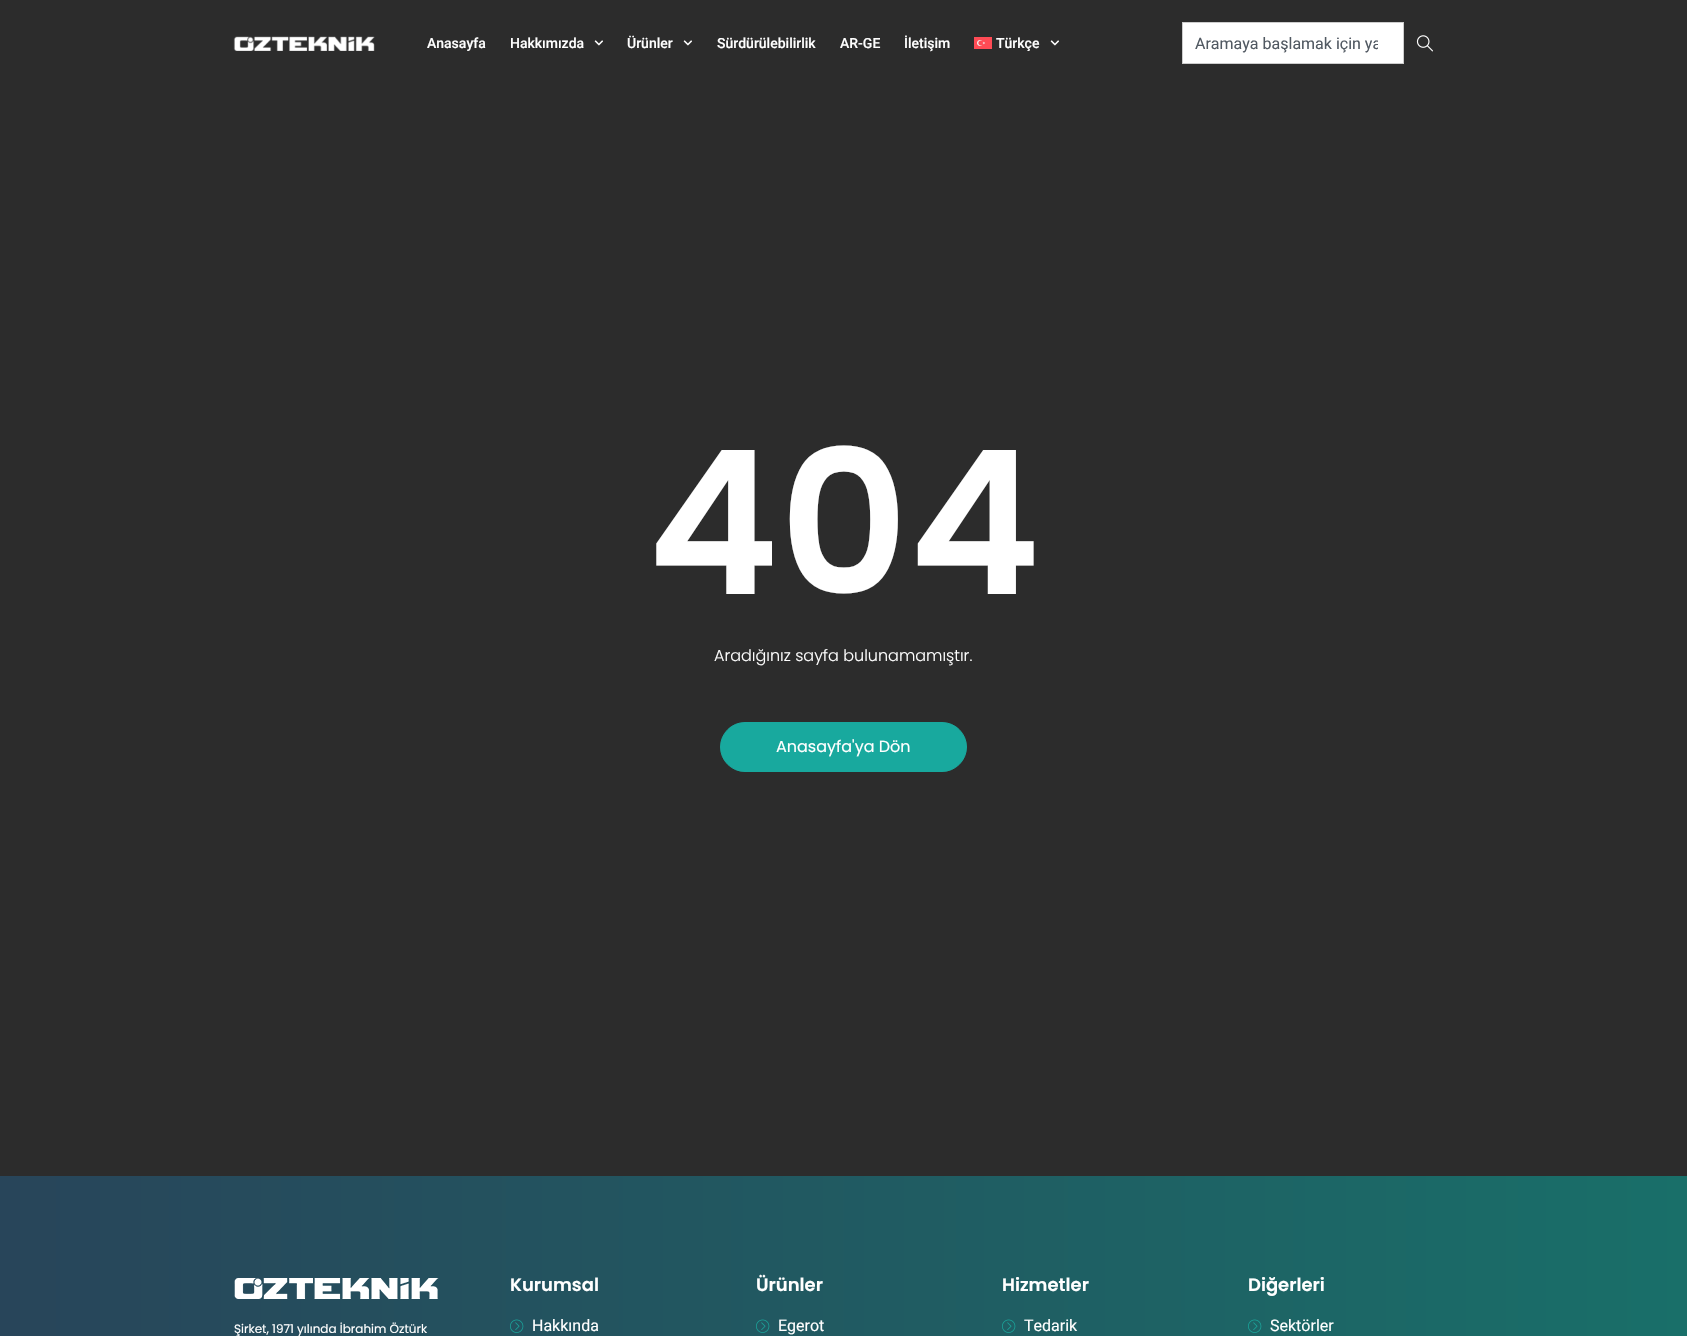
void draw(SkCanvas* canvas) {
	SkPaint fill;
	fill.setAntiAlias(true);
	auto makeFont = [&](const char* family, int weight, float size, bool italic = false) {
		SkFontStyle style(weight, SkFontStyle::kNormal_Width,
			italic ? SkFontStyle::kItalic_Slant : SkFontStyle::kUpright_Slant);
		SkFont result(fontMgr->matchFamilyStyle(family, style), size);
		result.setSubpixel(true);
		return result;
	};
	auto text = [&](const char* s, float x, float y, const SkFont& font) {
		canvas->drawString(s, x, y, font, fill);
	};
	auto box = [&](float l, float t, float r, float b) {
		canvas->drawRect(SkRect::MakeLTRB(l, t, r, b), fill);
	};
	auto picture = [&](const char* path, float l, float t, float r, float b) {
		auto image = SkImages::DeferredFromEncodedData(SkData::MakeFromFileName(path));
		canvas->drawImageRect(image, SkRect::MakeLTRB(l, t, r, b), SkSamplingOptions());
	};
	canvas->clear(0xFF2C2C2C);
	picture("image0.png", 233, 36, 375, 51);
	picture("image1.png", 594, 40, 603, 46);
	picture("image1.png", 683, 40, 692, 46);
	picture("image2.png", 974, 37, 992, 49);
	picture("image1.png", 1050, 40, 1059, 46);
	fill.setColor(0xFFFFFFFF);
	canvas->drawRect(SkRect::MakeLTRB(1182.5f, 22.5f, 1403.5f, 63.5f), fill);
	fill.setStyle(SkPaint::kStroke_Style);
	fill.setStrokeWidth(1);
	fill.setColor(0xFFCDCDCD);
	canvas->drawRect(SkRect::MakeLTRB(1182.5f, 22.5f, 1403.5f, 63.5f), fill);
	picture("image3.png", 1416, 35, 1433, 52);
	fill.setStyle(SkPaint::kFill_Style);
	fill.setColor(0xFF18A99E);
	canvas->drawRoundRect(SkRect::MakeLTRB(720.5f, 722.5f, 966.5f, 771.5f), 24.5f, 24.5f, fill);
	fill.setStyle(SkPaint::kStroke_Style);
	canvas->drawRoundRect(SkRect::MakeLTRB(720.5f, 722.5f, 966.5f, 771.5f), 24.5f, 24.5f, fill);
	fill.setStyle(SkPaint::kFill_Style);
	{
		const SkColor colors[] = {0xFF28455A, 0xFF196F69};
		const float stops[] = {0, 1};
		const SkPoint ends[] = {{0, 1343}, {1687, 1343}};
		fill.setShader(SkGradientShader::MakeLinear(ends, colors, stops, 2, SkTileMode::kClamp));
		fill.setAlpha(255);
	}
	box(0, 1176, 1687, 1336);
	picture("image4.png", 234, 1278, 439, 1299);
	picture("image5.png", 510, 1319, 524, 1333);
	picture("image6.png", 756, 1319, 770, 1333);
	picture("image7.png", 1002, 1319, 1016, 1333);
	picture("image8.png", 1248, 1319, 1262, 1333);
	auto font1 = makeFont("Roboto", 500, 14);
	fill.setShader(nullptr);
	fill.setColor(0xFFFFFFFF);
	text("Anasayfa", 427, 48, font1);
	text("Hakkımızda", 510, 48, font1);
	text("Ürünler", 627, 48, font1);
	text("Sürdürülebilirlik", 717, 48, font1);
	text("AR-GE", 840, 48, font1);
	text("İletişim", 904, 48, font1);
	text("Türkçe", 996, 48, font1);
	canvas->save();
	canvas->clipRect(SkRect::MakeLTRB(1195, 34, 1378, 53));
	auto font2 = makeFont("Roboto", 400, 16);
	fill.setColor(0xFF515962);
	text("Aramaya başlamak için ya", 1195, 49, font2);
	canvas->restore();
	auto font3 = makeFont("Poppins", 600, 200);
	fill.setColor(0xFFFFFFFF);
	text("404", 647, 594, font3);
	auto font4 = makeFont("Poppins", 300, 16);
	text("Aradığınız sayfa bulunamamıştır.", 714, 661, font4);
	auto font5 = makeFont("Poppins", 400, 16);
	text("Anasayfa'ya Dön", 776, 752, font5);
	auto font6 = makeFont("Poppins", 400, 12);
	text("Şirket, 1971 yılında İbrahim Öztürk", 234, 1333, font6);
	auto font7 = makeFont("Poppins", 600, 18);
	text("Kurumsal", 510, 1291, font7);
	text("Hakkında", 532, 1331, font2);
	text("Ürünler", 756, 1291, font7);
	text("Egerot", 778, 1331, font2);
	text("Hizmetler", 1002, 1291, font7);
	text("Tedarik", 1024, 1331, font2);
	text("Diğerleri", 1248, 1291, font7);
	text("Sektörler", 1270, 1331, font2);
}
